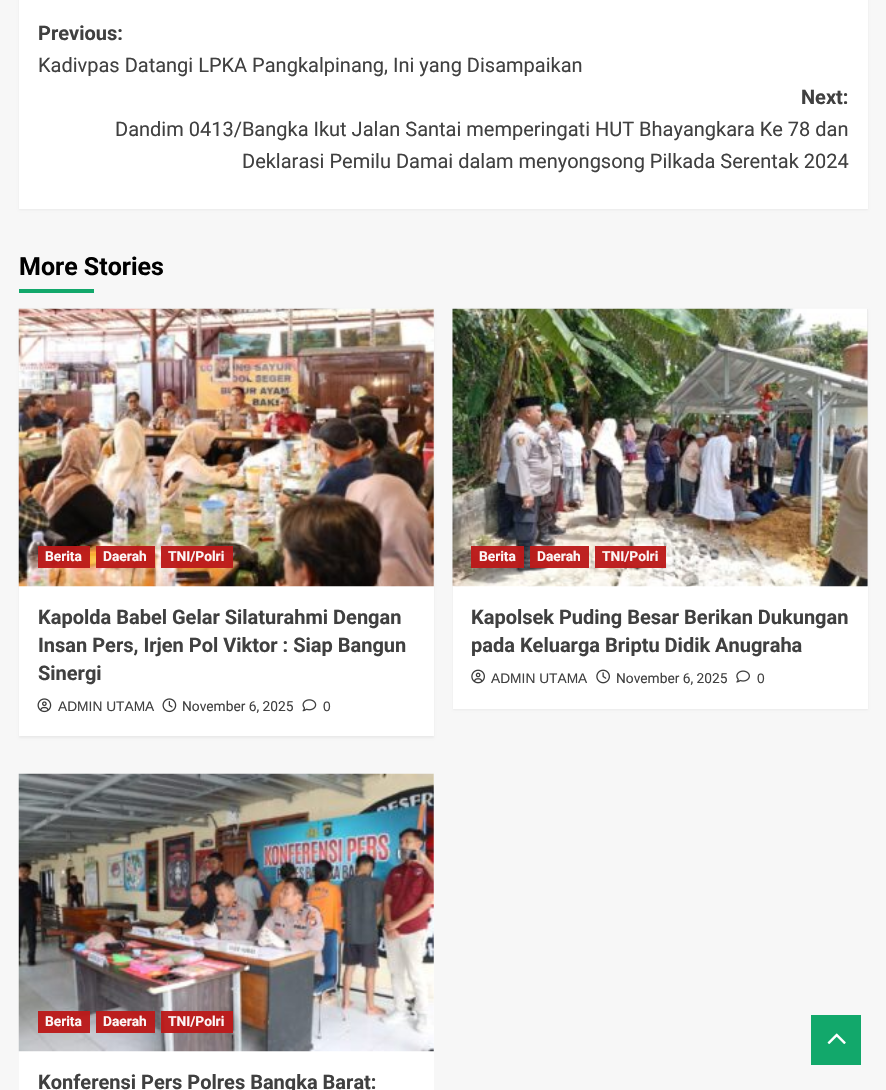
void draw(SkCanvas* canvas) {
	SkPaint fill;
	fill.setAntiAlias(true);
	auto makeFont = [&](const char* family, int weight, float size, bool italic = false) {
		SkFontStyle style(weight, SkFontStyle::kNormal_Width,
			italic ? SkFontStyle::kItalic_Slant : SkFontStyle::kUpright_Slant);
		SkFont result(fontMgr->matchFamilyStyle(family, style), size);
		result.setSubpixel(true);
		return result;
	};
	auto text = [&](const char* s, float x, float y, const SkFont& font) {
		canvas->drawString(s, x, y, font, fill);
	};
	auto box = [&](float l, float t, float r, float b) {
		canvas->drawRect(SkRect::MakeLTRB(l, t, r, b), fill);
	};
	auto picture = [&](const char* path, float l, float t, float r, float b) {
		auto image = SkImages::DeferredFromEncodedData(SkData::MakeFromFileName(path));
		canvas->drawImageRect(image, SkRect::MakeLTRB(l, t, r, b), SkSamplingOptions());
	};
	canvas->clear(0xFFF7F7F7);
	fill.setColor(0x0D000000);
	fill.setMaskFilter(SkMaskFilter::MakeBlur(kNormal_SkBlurStyle, 1));
	canvas->drawRect(SkRect::MakeLTRB(19, -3, 868, 210), fill);
	fill.setMaskFilter(nullptr);
	fill.setColor(0xFFFFFFFF);
	box(19, 0, 868, 209);
	fill.setColor(0xFF12A86B);
	box(19, 289, 94, 293);
	fill.setColor(0x0D000000);
	fill.setMaskFilter(SkMaskFilter::MakeBlur(kNormal_SkBlurStyle, 1));
	canvas->drawRect(SkRect::MakeLTRB(19, 310, 434, 738), fill);
	fill.setMaskFilter(nullptr);
	fill.setColor(0xFFFFFFFF);
	box(19, 309, 434, 736);
	picture("image0.png", 18, 308, 434, 587);
	fill.setColor(0xF5BB1919);
	box(38, 546, 90, 568);
	box(96, 546, 155, 568);
	box(161, 546, 233, 568);
	picture("image1.png", 37, 698, 52, 713);
	picture("image2.png", 162, 698, 177, 713);
	picture("image3.png", 302, 699, 317, 712);
	fill.setColor(0x0D000000);
	fill.setMaskFilter(SkMaskFilter::MakeBlur(kNormal_SkBlurStyle, 1));
	canvas->drawRect(SkRect::MakeLTRB(453, 310, 868, 710), fill);
	fill.setMaskFilter(nullptr);
	fill.setColor(0xFFFFFFFF);
	box(453, 586, 868, 709);
	fill.setColor(0xFFD8D8D8);
	box(867, 309, 868, 586);
	picture("image4.png", 452, 308, 868, 587);
	fill.setColor(0xF5BB1919);
	box(471, 546, 524, 568);
	box(530, 546, 589, 568);
	box(595, 546, 666, 568);
	picture("image5.png", 471, 669, 485, 684);
	picture("image6.png", 596, 669, 610, 684);
	picture("image7.png", 736, 670, 750, 683);
	fill.setColor(0xFFFFFFFF);
	box(19, 774, 434, 1090);
	picture("image8.png", 18, 773, 434, 1052);
	fill.setColor(0xF5BB1919);
	box(38, 1011, 90, 1033);
	box(96, 1011, 155, 1033);
	box(161, 1011, 233, 1033);
	fill.setColor(0xFF12A86B);
	box(811, 1015, 861, 1065);
	picture("image9.png", 827, 1033, 846, 1044);
	auto font1 = makeFont("Roboto", 700, 20);
	fill.setColor(0xFF404040);
	text("Previous:", 38, 40, font1);
	auto font2 = makeFont("Roboto", 400, 20);
	text("Kadivpas Datangi LPKA Pangkalpinang, Ini yang Disampaikan", 38, 72, font2);
	text("Next:", 801, 104, font1);
	text("Dandim 0413/Bangka Ikut Jalan Santai memperingati HUT Bhayangkara Ke 78 dan", 115, 136, font2);
	text("Deklarasi Pemilu Damai dalam menyongsong Pilkada Serentak 2024", 242, 168, font2);
	auto font3 = makeFont("Roboto", 700, 25);
	fill.setColor(0xFF000000);
	text("More Stories", 19, 275, font3);
	auto font4 = makeFont("Roboto", 700, 13.75f);
	fill.setColor(0xFFFCF6F6);
	text("Berita", 45, 561, font4);
	text("Daerah", 103, 561, font4);
	text("TNI/Polri", 168, 561, font4);
	fill.setColor(0xFF404040);
	text("Kapolda Babel Gelar Silaturahmi Dengan", 38, 624, font1);
	text("Insan Pers, Irjen Pol Viktor : Siap Bangun", 38, 652, font1);
	text("Sinergi", 38, 680, font1);
	auto font5 = makeFont("Liberation Sans", 400, 13.75f);
	text("ADMIN UTAMA", 58, 711, font5);
	auto font6 = makeFont("Roboto", 400, 13.75f);
	text("November 6, 2025", 182, 711, font6);
	text("0", 323, 711, font5);
	fill.setColor(0xFFFCF6F6);
	text("Berita", 479, 561, font4);
	text("Daerah", 537, 561, font4);
	text("TNI/Polri", 602, 561, font4);
	fill.setColor(0xFF404040);
	text("Kapolsek Puding Besar Berikan Dukungan", 471, 624, font1);
	text("pada Keluarga Briptu Didik Anugraha", 471, 652, font1);
	text("ADMIN UTAMA", 491, 683, font5);
	text("November 6, 2025", 616, 683, font6);
	text("0", 757, 683, font5);
	fill.setColor(0xFFFCF6F6);
	text("Berita", 45, 1026, font4);
	text("Daerah", 103, 1026, font4);
	text("TNI/Polri", 168, 1026, font4);
	fill.setColor(0xFF404040);
	text("Konferensi Pers Polres Bangka Barat:", 38, 1089, font1);
}
